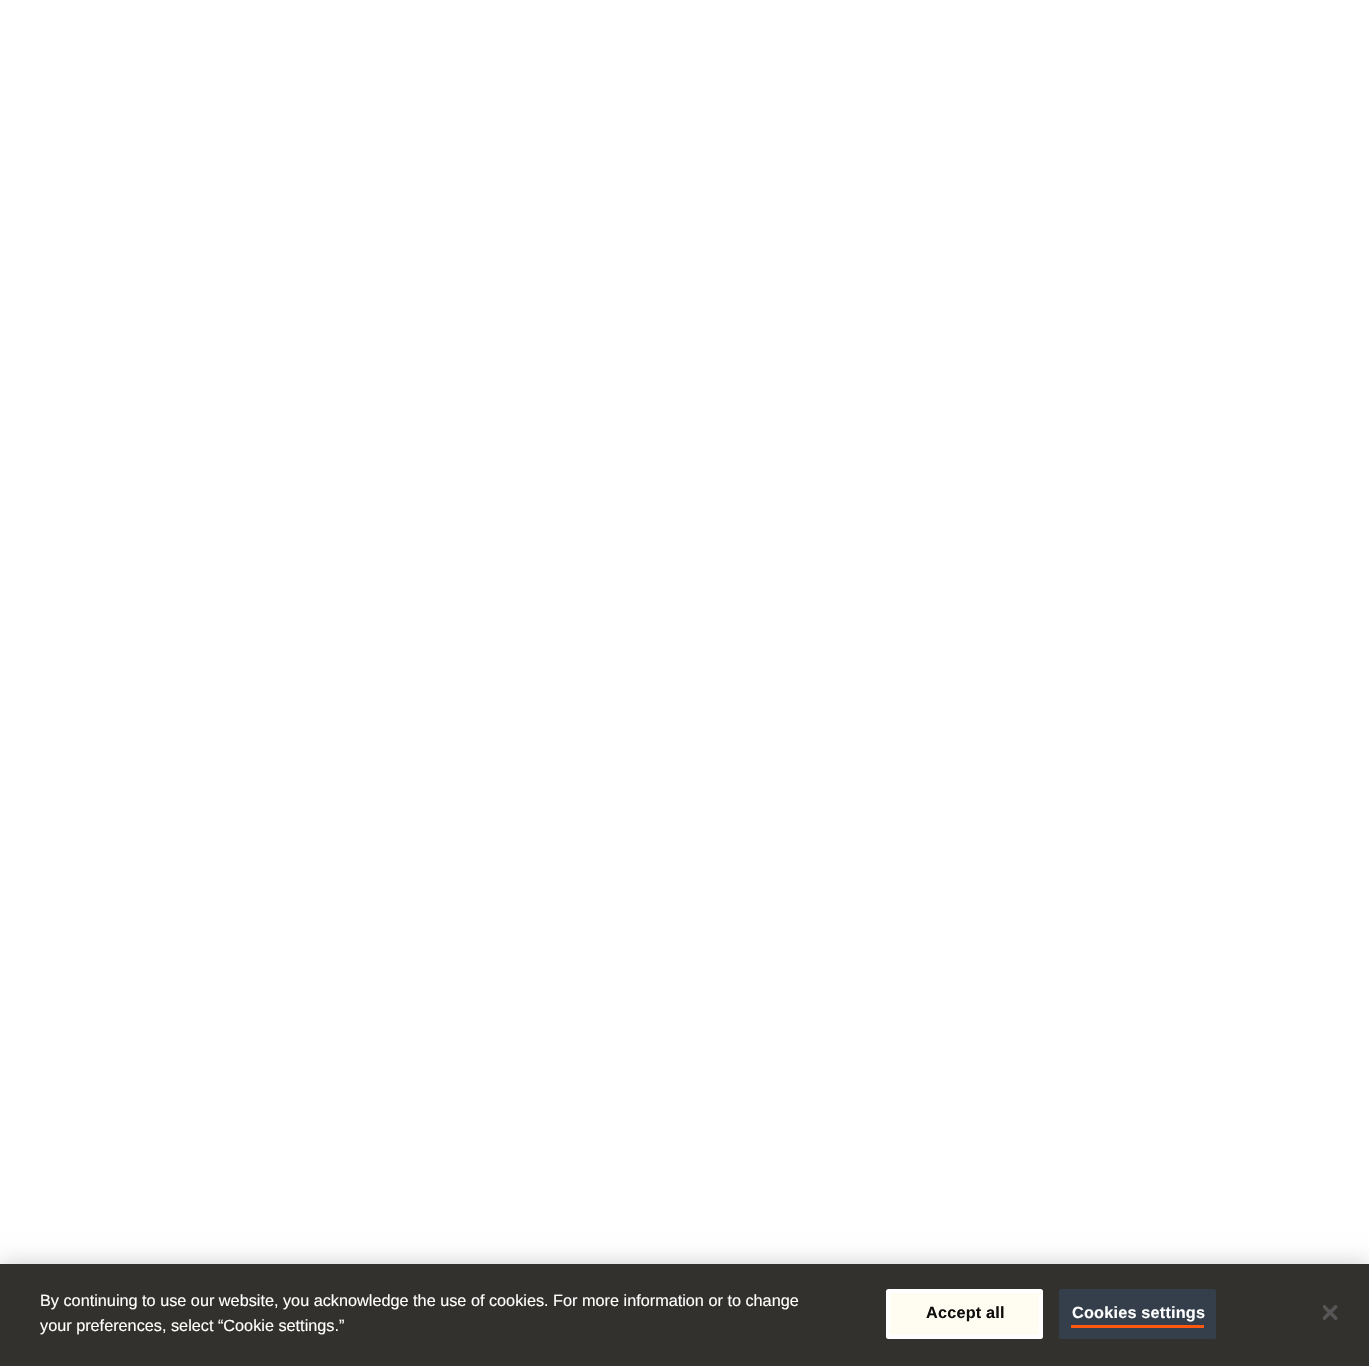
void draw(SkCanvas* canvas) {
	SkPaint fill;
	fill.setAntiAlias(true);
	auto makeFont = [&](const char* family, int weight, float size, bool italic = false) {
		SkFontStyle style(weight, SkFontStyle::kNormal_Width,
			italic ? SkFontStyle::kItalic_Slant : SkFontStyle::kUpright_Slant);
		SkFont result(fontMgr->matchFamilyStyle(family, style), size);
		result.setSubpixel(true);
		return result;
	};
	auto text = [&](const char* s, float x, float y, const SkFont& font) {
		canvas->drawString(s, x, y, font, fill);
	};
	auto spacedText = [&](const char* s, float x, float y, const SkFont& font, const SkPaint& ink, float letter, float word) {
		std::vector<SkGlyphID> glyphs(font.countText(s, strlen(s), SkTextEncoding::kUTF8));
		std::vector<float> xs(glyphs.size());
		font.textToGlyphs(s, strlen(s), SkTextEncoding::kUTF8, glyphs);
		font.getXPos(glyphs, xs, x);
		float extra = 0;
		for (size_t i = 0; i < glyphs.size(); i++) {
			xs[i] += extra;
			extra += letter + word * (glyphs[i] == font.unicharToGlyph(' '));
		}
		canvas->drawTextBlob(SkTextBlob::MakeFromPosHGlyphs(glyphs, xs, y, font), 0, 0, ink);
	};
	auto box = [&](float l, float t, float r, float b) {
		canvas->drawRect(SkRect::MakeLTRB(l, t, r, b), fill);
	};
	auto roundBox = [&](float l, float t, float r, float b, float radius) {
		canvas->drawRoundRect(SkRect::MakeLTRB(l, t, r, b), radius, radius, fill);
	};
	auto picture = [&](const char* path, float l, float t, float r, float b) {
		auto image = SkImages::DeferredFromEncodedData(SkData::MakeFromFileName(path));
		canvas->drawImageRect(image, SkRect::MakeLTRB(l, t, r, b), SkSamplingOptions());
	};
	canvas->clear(0xFFFFFFFF);
	fill.setColor(0x33000000);
	fill.setMaskFilter(SkMaskFilter::MakeBlur(kNormal_SkBlurStyle, 11));
	canvas->drawRect(SkRect::MakeLTRB(0, 1264, 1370, 1366), fill);
	fill.setMaskFilter(nullptr);
	fill.setColor(0xFF32312D);
	box(0, 1264, 1369, 1366);
	fill.setColor(0xFFFFFDF2);
	canvas->drawRoundRect(SkRect::MakeLTRB(888, 1291, 1041, 1337), 0.5f, 0.5f, fill);
	fill.setStyle(SkPaint::kStroke_Style);
	fill.setStrokeWidth(4);
	fill.setColor(0xFFFFFFFF);
	canvas->drawRoundRect(SkRect::MakeLTRB(888, 1291, 1041, 1337), 0.5f, 0.5f, fill);
	fill.setStyle(SkPaint::kFill_Style);
	fill.setColor(0xFF343F4B);
	roundBox(1059, 1289, 1216, 1339, 2.5f);
	fill.setColor(0xFFFF5810);
	box(1071, 1325, 1204, 1328);
	picture("image0.png", 1323, 1305, 1338, 1320);
	auto font1 = makeFont("Liberation Sans", 400, 16.25f);
	fill.setColor(0xFFFFFFFF);
	text("By continuing to use our website, you acknowledge the use of cookies. For more information or to change", 40, 1306, font1);
	text("your preferences, select “Cookie settings.”", 40, 1331, font1);
	auto font2 = makeFont("Liberation Sans", 700, 16.25f);
	fill.setColor(0xFF0D0D0B);
	spacedText("Accept all", 926, 1318, font2, fill, 0.2f, 0);
	fill.setColor(0xFFFFFFFF);
	spacedText("Cookies settings", 1072, 1318, font2, fill, 0.2f, 0);
}
